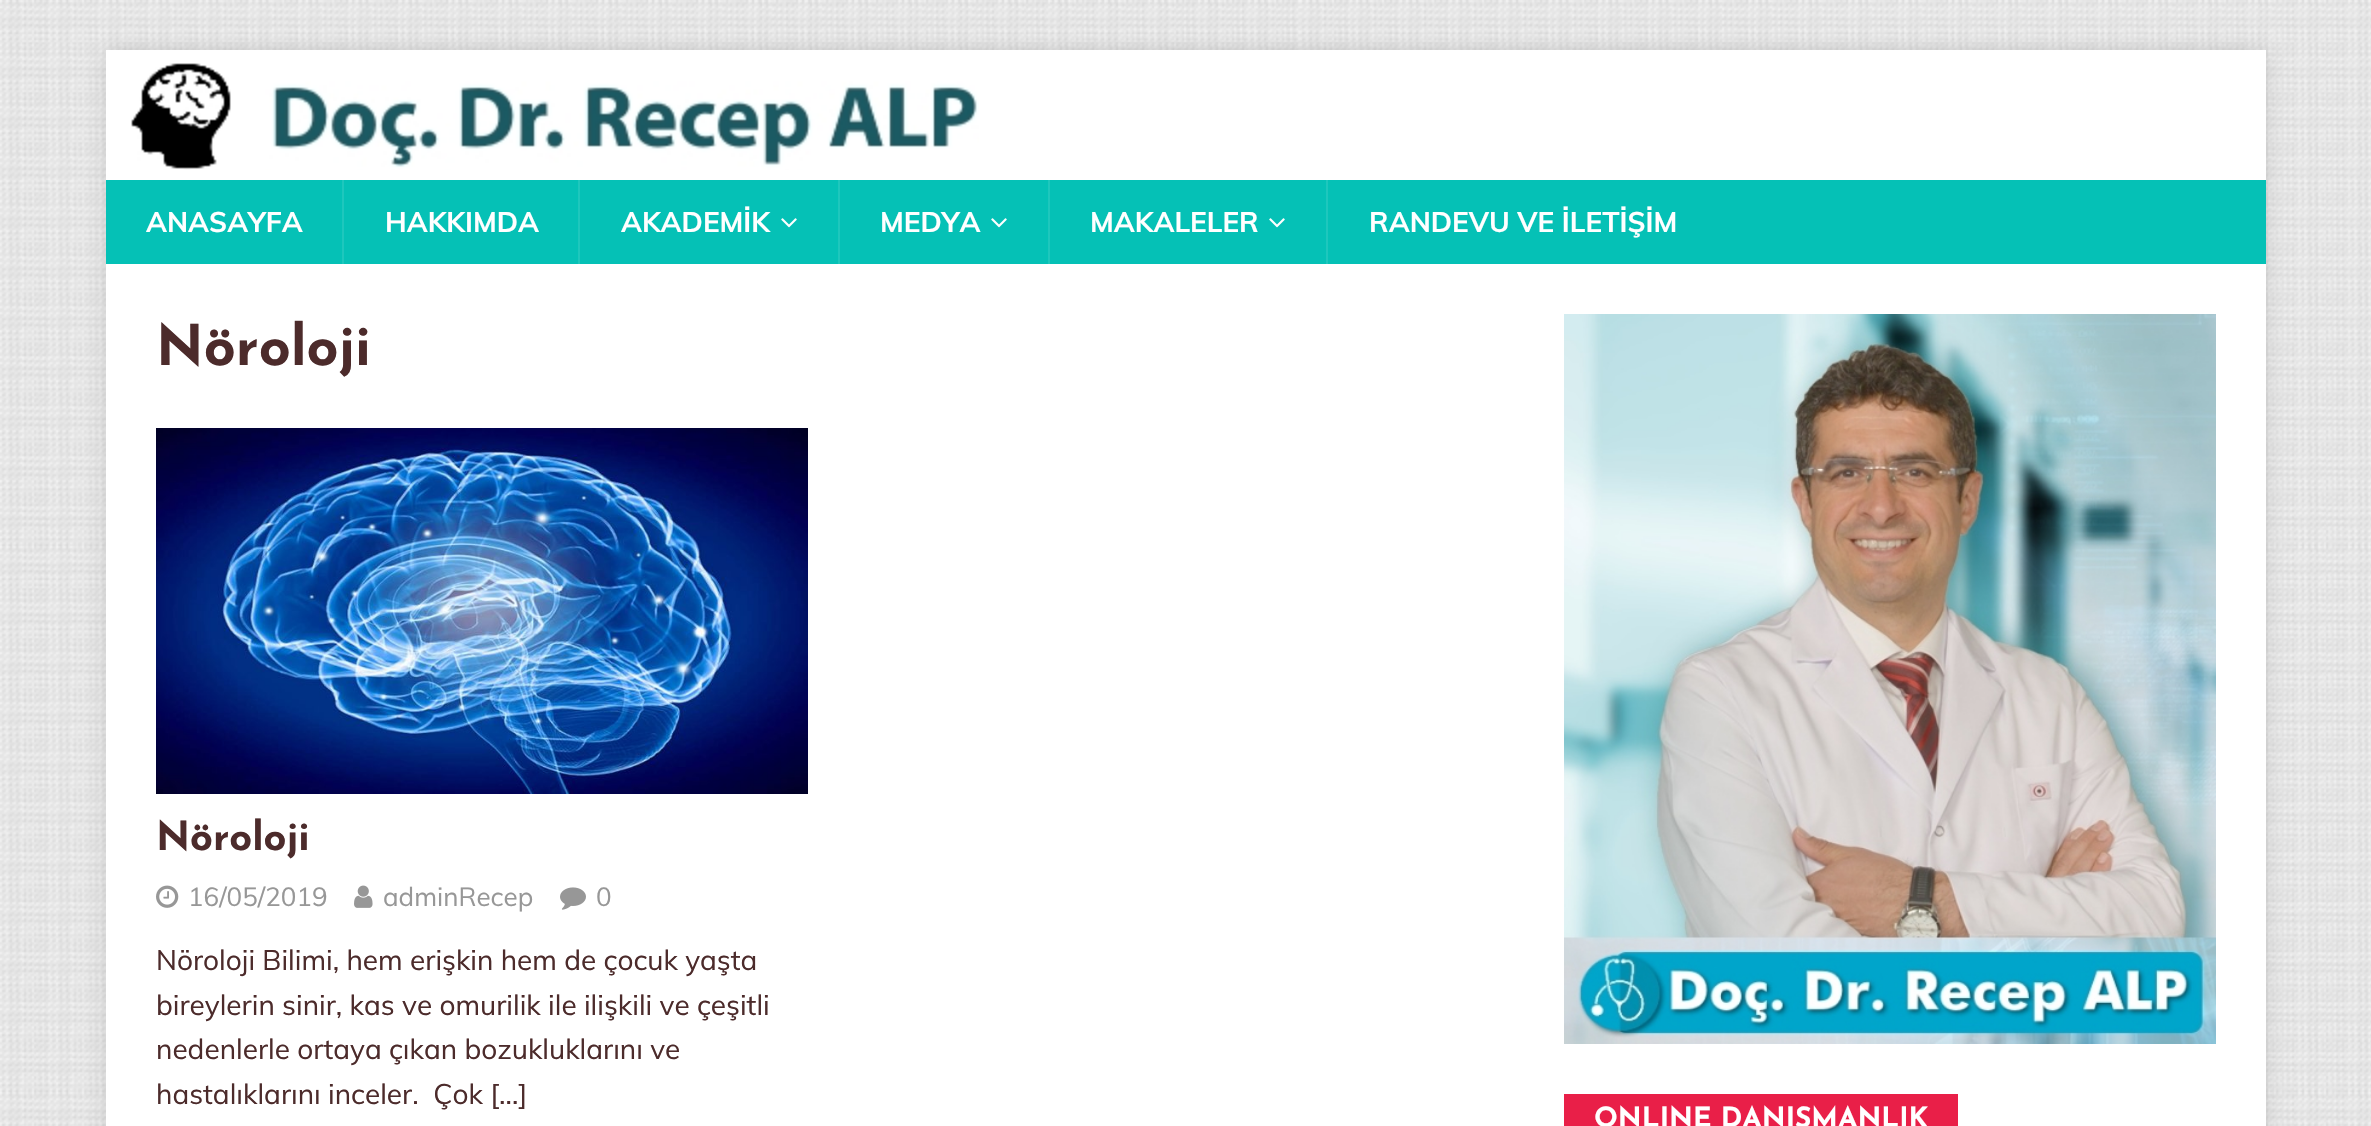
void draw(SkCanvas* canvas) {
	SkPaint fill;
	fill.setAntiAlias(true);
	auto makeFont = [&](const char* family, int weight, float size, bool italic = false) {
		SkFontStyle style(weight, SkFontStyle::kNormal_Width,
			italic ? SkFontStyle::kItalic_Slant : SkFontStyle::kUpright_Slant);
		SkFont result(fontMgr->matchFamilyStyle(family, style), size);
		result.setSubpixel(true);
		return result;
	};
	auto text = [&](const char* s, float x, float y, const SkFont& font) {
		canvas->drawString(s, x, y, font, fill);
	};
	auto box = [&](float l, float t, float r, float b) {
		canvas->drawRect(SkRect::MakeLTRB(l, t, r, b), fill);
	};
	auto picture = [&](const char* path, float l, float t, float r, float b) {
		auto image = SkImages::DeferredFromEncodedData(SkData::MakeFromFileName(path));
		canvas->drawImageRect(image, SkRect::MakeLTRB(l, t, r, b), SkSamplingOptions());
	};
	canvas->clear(0xFFFFFFFF);
	picture("image0.png", 0, 0, 2371, 1126);
	fill.setColor(0x2B323232);
	fill.setMaskFilter(SkMaskFilter::MakeBlur(kNormal_SkBlurStyle, 10));
	canvas->drawRect(SkRect::MakeLTRB(106, 50, 2266, 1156), fill);
	fill.setMaskFilter(nullptr);
	fill.setColor(0xFFFFFFFF);
	box(106, 50, 2266, 180);
	picture("image1.png", 131, 63, 979, 170);
	fill.setColor(0xFF05C1B6);
	box(106, 180, 2266, 264);
	fill.setColor(0xFF1EC7BD);
	box(342, 180, 344, 264);
	box(578, 180, 580, 264);
	picture("image2.png", 781, 218, 797, 228);
	box(838, 180, 840, 264);
	picture("image2.png", 991, 218, 1007, 228);
	box(1048, 180, 1050, 264);
	picture("image2.png", 1269, 218, 1285, 228);
	box(1326, 180, 1328, 264);
	fill.setColor(0xFFFFFFFF);
	box(106, 264, 2266, 1126);
	picture("image3.png", 156, 428, 808, 794);
	picture("image4.png", 156, 885, 179, 908);
	picture("image5.png", 354, 885, 373, 908);
	picture("image6.png", 560, 887, 586, 910);
	picture("image7.png", 1564, 314, 2216, 1044);
	fill.setColor(0xFFE91F48);
	box(1564, 1094, 1958, 1126);
	auto font1 = makeFont("Muli", 700, 28);
	fill.setColor(0xFFFFFFFF);
	text("ANASAYFA", 146, 232, font1);
	text("HAKKIMDA", 385, 232, font1);
	text("AKADEMİK", 621, 232, font1);
	text("MEDYA", 880, 232, font1);
	text("MAKALELER", 1090, 232, font1);
	text("RANDEVU VE İLETİŞİM", 1369, 232, font1);
	auto font2 = makeFont("Josefin Sans", 700, 56);
	fill.setColor(0xFF4C2B2B);
	text("Nöroloji", 156, 365, font2);
	auto font3 = makeFont("Josefin Sans", 700, 40);
	text("Nöroloji", 156, 850, font3);
	auto font4 = makeFont("Muli", 400, 26);
	fill.setColor(0xFF979797);
	text("16/05/2019", 188, 906, font4);
	text("adminRecep", 383, 906, font4);
	text("0", 596, 906, font4);
	auto font5 = makeFont("Muli", 400, 28);
	fill.setColor(0xFF4C2B2B);
	text("Nöroloji Bilimi, hem erişkin hem de çocuk yaşta", 156, 970, font5);
	text("bireylerin sinir, kas ve omurilik ile ilişkili ve çeşitli", 156, 1015, font5);
	text("nedenlerle ortaya çıkan bozukluklarını ve", 156, 1059, font5);
	text("hastalıklarını inceler.  Çok […]", 156, 1104, font5);
	auto font6 = makeFont("Josefin Sans", 700, 28);
	fill.setColor(0xFFFFFFFF);
	text("ONLINE DANIŞMANLIK", 1594, 1127, font6);
}
